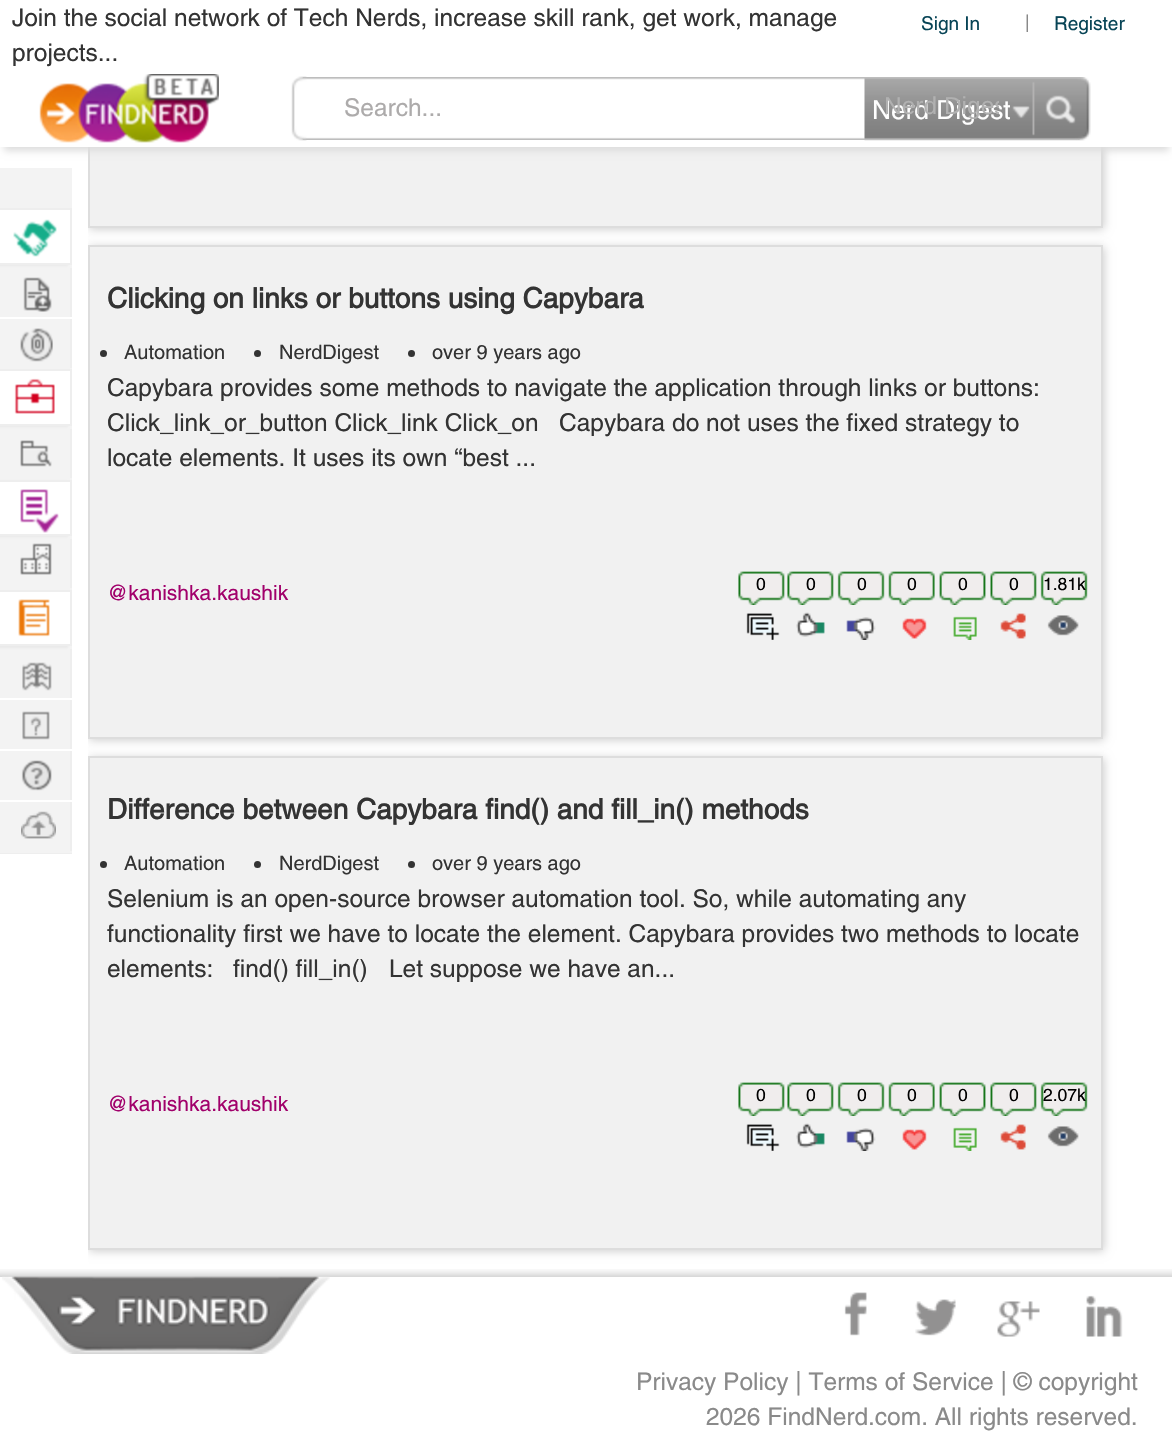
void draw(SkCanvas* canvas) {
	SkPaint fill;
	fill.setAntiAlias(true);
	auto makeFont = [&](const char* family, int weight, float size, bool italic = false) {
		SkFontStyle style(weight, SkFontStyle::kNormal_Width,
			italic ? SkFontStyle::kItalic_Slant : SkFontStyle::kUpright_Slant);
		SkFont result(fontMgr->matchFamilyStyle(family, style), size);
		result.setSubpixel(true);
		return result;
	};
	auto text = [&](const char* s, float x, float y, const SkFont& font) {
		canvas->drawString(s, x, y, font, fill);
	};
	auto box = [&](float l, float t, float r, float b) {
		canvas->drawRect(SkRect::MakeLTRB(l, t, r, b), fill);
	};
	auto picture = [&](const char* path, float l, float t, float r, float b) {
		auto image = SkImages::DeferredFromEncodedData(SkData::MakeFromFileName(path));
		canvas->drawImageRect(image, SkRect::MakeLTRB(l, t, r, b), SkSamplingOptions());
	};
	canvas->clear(0xFFFFFFFF);
	canvas->save();
	canvas->clipRect(SkRect::MakeLTRB(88, 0, 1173, 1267));
	fill.setColor(0xFFCCCCCC);
	fill.setMaskFilter(SkMaskFilter::MakeBlur(kNormal_SkBlurStyle, 4.5f));
	canvas->drawRect(SkRect::MakeLTRB(89, -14, 1104, 229), fill);
	fill.setMaskFilter(nullptr);
	canvas->restore();
	fill.setColor(0xFFF1F1F1);
	box(90, 147, 1101, 226);
	fill.setStyle(SkPaint::kStroke_Style);
	fill.setStrokeWidth(2);
	fill.setColor(0xFFDDDDDD);
	canvas->drawRect(SkRect::MakeLTRB(89, -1, 1102, 227), fill);
	fill.setStyle(SkPaint::kFill_Style);
	fill.setMaskFilter(SkMaskFilter::MakeBlur(kNormal_SkBlurStyle, 3.5f));
	canvas->drawRect(SkRect::MakeLTRB(4, 11, 1169, 151), fill);
	fill.setMaskFilter(nullptr);
	fill.setColor(0xFFFFFFFF);
	box(0, 0, 1172, 147);
	picture("image0.png", 39, 74, 219, 143);
	picture("image2.png", 302, 77, 1080, 140);
	picture("image1.png", 291, 76, 307, 141);
	picture("image3.png", 864, 77, 1091, 141);
	picture("image4.png", 1012, 106, 1030, 119);
	picture("image5.png", 1045, 95, 1076, 124);
	fill.setColor(0xFFF3F3F3);
	box(0, 168, 72, 851);
	fill.setColor(0xFFEEEEEE);
	box(0, 853, 72, 854);
	fill.setColor(0x80DDDDDD);
	fill.setMaskFilter(SkMaskFilter::MakeBlur(kNormal_SkBlurStyle, 1));
	canvas->drawRect(SkRect::MakeLTRB(-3, 210, 68, 266), fill);
	fill.setMaskFilter(nullptr);
	fill.setColor(0xFFFFFFFF);
	box(0, 210, 70, 263);
	fill.setColor(0xFFEEEEEE);
	box(0, 208, 72, 210);
	box(70, 208, 72, 264);
	box(0, 263, 72, 265);
	picture("image6.png", 13, 219, 57, 257);
	box(70, 268, 72, 369);
	fill.setColor(0xFFFFFFFF);
	box(0, 317, 72, 319);
	picture("image7.png", 23, 277, 52, 312);
	fill.setColor(0xFFF3F3F3);
	box(70, 368, 72, 369);
	picture("image8.png", 20, 328, 53, 362);
	fill.setColor(0x80DDDDDD);
	fill.setMaskFilter(SkMaskFilter::MakeBlur(kNormal_SkBlurStyle, 1));
	canvas->drawRect(SkRect::MakeLTRB(-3, 371, 68, 427), fill);
	fill.setMaskFilter(nullptr);
	fill.setColor(0xFFFFFFFF);
	box(0, 371, 70, 424);
	fill.setColor(0xFFEEEEEE);
	box(0, 369, 72, 371);
	box(70, 369, 72, 425);
	box(0, 424, 72, 426);
	picture("image9.png", 14, 378, 55, 414);
	box(70, 429, 72, 480);
	fill.setColor(0xFFF3F3F3);
	box(70, 478, 72, 480);
	picture("image10.png", 20, 440, 52, 467);
	fill.setColor(0x80DDDDDD);
	fill.setMaskFilter(SkMaskFilter::MakeBlur(kNormal_SkBlurStyle, 1));
	canvas->drawRect(SkRect::MakeLTRB(-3, 481, 68, 537), fill);
	fill.setMaskFilter(nullptr);
	fill.setColor(0xFFFFFFFF);
	box(0, 482, 70, 534);
	fill.setColor(0xFFEEEEEE);
	box(0, 480, 72, 482);
	box(70, 480, 72, 536);
	box(0, 534, 72, 536);
	picture("image11.png", 20, 489, 59, 533);
	box(70, 539, 72, 590);
	fill.setColor(0xFFF3F3F3);
	box(70, 588, 72, 590);
	picture("image12.png", 20, 543, 52, 575);
	fill.setColor(0x80DDDDDD);
	fill.setMaskFilter(SkMaskFilter::MakeBlur(kNormal_SkBlurStyle, 1));
	canvas->drawRect(SkRect::MakeLTRB(-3, 592, 68, 648), fill);
	fill.setMaskFilter(nullptr);
	fill.setColor(0xFFFFFFFF);
	box(0, 592, 70, 644);
	fill.setColor(0xFFEEEEEE);
	box(0, 590, 72, 592);
	box(70, 590, 72, 646);
	box(0, 644, 72, 646);
	picture("image13.png", 18, 599, 50, 637);
	box(70, 649, 72, 852);
	fill.setColor(0xFFFFFFFF);
	box(0, 698, 72, 700);
	picture("image14.png", 22, 662, 52, 691);
	box(0, 749, 72, 751);
	picture("image15.png", 22, 711, 50, 740);
	box(0, 800, 72, 802);
	picture("image16.png", 21, 760, 52, 791);
	fill.setColor(0xFFF3F3F3);
	box(0, 851, 72, 853);
	picture("image17.png", 21, 811, 56, 839);
	canvas->save();
	canvas->clipRect(SkRect::MakeLTRB(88, 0, 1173, 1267));
	fill.setColor(0xFFCCCCCC);
	fill.setMaskFilter(SkMaskFilter::MakeBlur(kNormal_SkBlurStyle, 4.5f));
	canvas->drawRect(SkRect::MakeLTRB(89, 247, 1104, 740), fill);
	fill.setMaskFilter(nullptr);
	canvas->restore();
	fill.setColor(0xFFF1F1F1);
	canvas->drawRect(SkRect::MakeLTRB(89, 246, 1102, 738), fill);
	fill.setStyle(SkPaint::kStroke_Style);
	fill.setColor(0xFFDDDDDD);
	canvas->drawRect(SkRect::MakeLTRB(89, 246, 1102, 738), fill);
	fill.setStyle(SkPaint::kFill_Style);
	fill.setColor(0xFF333333);
	canvas->drawCircle(103.5f, 353.5f, 3.5f, fill);
	canvas->drawCircle(257.5f, 353.5f, 3.5f, fill);
	canvas->drawCircle(411.5f, 353.5f, 3.5f, fill);
	picture("image18.png", 738, 571, 785, 605);
	picture("image19.png", 746, 613, 780, 640);
	picture("image18.png", 787, 571, 834, 605);
	picture("image20.png", 796, 612, 825, 637);
	picture("image21.png", 837, 571, 885, 605);
	picture("image22.png", 846, 617, 876, 640);
	picture("image23.png", 888, 571, 935, 605);
	picture("image24.png", 902, 618, 927, 639);
	picture("image25.png", 939, 571, 986, 605);
	picture("image26.png", 953, 616, 977, 640);
	picture("image27.png", 990, 571, 1037, 605);
	picture("image28.png", 1000, 613, 1026, 639);
	picture("image21.png", 1040, 571, 1088, 605);
	picture("image29.png", 1047, 615, 1079, 636);
	canvas->save();
	canvas->clipRect(SkRect::MakeLTRB(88, 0, 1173, 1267));
	fill.setColor(0xFFCCCCCC);
	fill.setMaskFilter(SkMaskFilter::MakeBlur(kNormal_SkBlurStyle, 4.5f));
	canvas->drawRect(SkRect::MakeLTRB(89, 758, 1104, 1251), fill);
	fill.setMaskFilter(nullptr);
	canvas->restore();
	fill.setColor(0xFFF1F1F1);
	canvas->drawRect(SkRect::MakeLTRB(89, 757, 1102, 1249), fill);
	fill.setStyle(SkPaint::kStroke_Style);
	fill.setColor(0xFFDDDDDD);
	canvas->drawRect(SkRect::MakeLTRB(89, 757, 1102, 1249), fill);
	fill.setStyle(SkPaint::kFill_Style);
	fill.setColor(0xFF333333);
	canvas->drawCircle(103.5f, 864.5f, 3.5f, fill);
	canvas->drawCircle(257.5f, 864.5f, 3.5f, fill);
	canvas->drawCircle(411.5f, 864.5f, 3.5f, fill);
	picture("image30.png", 738, 1082, 785, 1116);
	picture("image19.png", 746, 1124, 780, 1151);
	picture("image30.png", 787, 1082, 834, 1116);
	picture("image31.png", 796, 1123, 825, 1148);
	picture("image32.png", 837, 1082, 885, 1116);
	picture("image33.png", 846, 1128, 876, 1151);
	picture("image34.png", 888, 1082, 935, 1116);
	picture("image35.png", 902, 1129, 927, 1150);
	picture("image36.png", 939, 1082, 986, 1116);
	picture("image37.png", 953, 1127, 977, 1151);
	picture("image38.png", 990, 1082, 1037, 1116);
	picture("image39.png", 1000, 1124, 1026, 1150);
	picture("image32.png", 1040, 1082, 1088, 1116);
	picture("image29.png", 1047, 1126, 1079, 1147);
	picture("image40.png", 0, 1269, 1172, 1277);
	picture("image41.png", 2, 1276, 330, 1354);
	picture("image42.png", 844, 1292, 867, 1336);
	picture("image43.png", 915, 1299, 956, 1336);
	picture("image44.png", 997, 1301, 1040, 1337);
	picture("image45.png", 1086, 1295, 1123, 1337);
	auto font1 = makeFont("Helvetica", 400, 24.5f);
	text("Join the social network of Tech Nerds, increase skill rank, get work, manage", 12, 26, font1);
	auto font2 = makeFont("Helvetica", 400, 19);
	fill.setColor(0xFF074456);
	text("Sign In", 921, 30, font2);
	auto font3 = makeFont("Helvetica", 400, 17.5f);
	fill.setColor(0xFF828282);
	text("|", 1025, 28, font3);
	fill.setColor(0xFF074456);
	text("Register", 1054, 30, font2);
	fill.setColor(0xFF333333);
	text("projects...", 12, 61, font1);
	fill.setColor(0xFFADABAB);
	text("Search...", 344, 116, font1);
	auto font4 = makeFont("Helvetica", 400, 26.25f);
	fill.setColor(0xFFFFFFFF);
	text("Nerd Digest", 872, 119, font4);
	canvas->save();
	canvas->clipRect(SkRect::MakeLTRB(884, 89, 999, 121));
	auto font5 = makeFont("Liberation Sans", 400, 24.5f);
	fill.setColor(0xFFB1B1B1);
	text("Nerd Diges", 884, 114, font5);
	canvas->restore();
	auto font6 = makeFont("Helvetica", 700, 28);
	fill.setColor(0xFF333333);
	text("Clicking on links or buttons using Capybara", 107, 308, font6);
	auto font7 = makeFont("Helvetica", 400, 20);
	text("Automation", 124, 359, font7);
	text("NerdDigest", 279, 359, font7);
	text("over 9 years ago", 432, 359, font7);
	text("Capybara provides some methods to navigate the application through links or buttons:", 107, 396, font1);
	text("Click_link_or_button Click_link Click_on", 107, 431, font1);
	text("Capybara do not uses the fixed strategy to", 559, 431, font1);
	text("locate elements. It uses its own “best ...", 107, 466, font1);
	auto font8 = makeFont("Helvetica", 400, 21);
	fill.setColor(0xFFA1006B);
	text("@kanishka.kaushik", 107, 600, font8);
	fill.setColor(0xFF000000);
	text("0", 756, 590, font3);
	text("0", 806, 590, font3);
	text("0", 857, 590, font3);
	text("0", 907, 590, font3);
	text("0", 958, 590, font3);
	text("0", 1009, 590, font3);
	text("1.81k", 1043, 590, font3);
	fill.setColor(0xFF333333);
	text("Difference between Capybara find() and fill_in() methods", 107, 819, font6);
	text("Automation", 124, 870, font7);
	text("NerdDigest", 279, 870, font7);
	text("over 9 years ago", 432, 870, font7);
	text("Selenium is an open-source browser automation tool. So, while automating any", 107, 907, font1);
	text("functionality first we have to locate the element. Capybara provides two methods to locate", 107, 942, font1);
	text("elements:", 107, 977, font1);
	text("find() fill_in()", 233, 977, font1);
	text("Let suppose we have an...", 389, 977, font1);
	fill.setColor(0xFFA1006B);
	text("@kanishka.kaushik", 107, 1111, font8);
	fill.setColor(0xFF000000);
	text("0", 756, 1101, font3);
	text("0", 806, 1101, font3);
	text("0", 857, 1101, font3);
	text("0", 907, 1101, font3);
	text("0", 958, 1101, font3);
	text("0", 1009, 1101, font3);
	text("2.07k", 1043, 1101, font3);
	fill.setColor(0xFF8A8A8A);
	text("Privacy Policy | Terms of Service | © copyright", 636, 1390, font1);
	text("2026 FindNerd.com. All rights reserved.", 706, 1425, font1);
}
